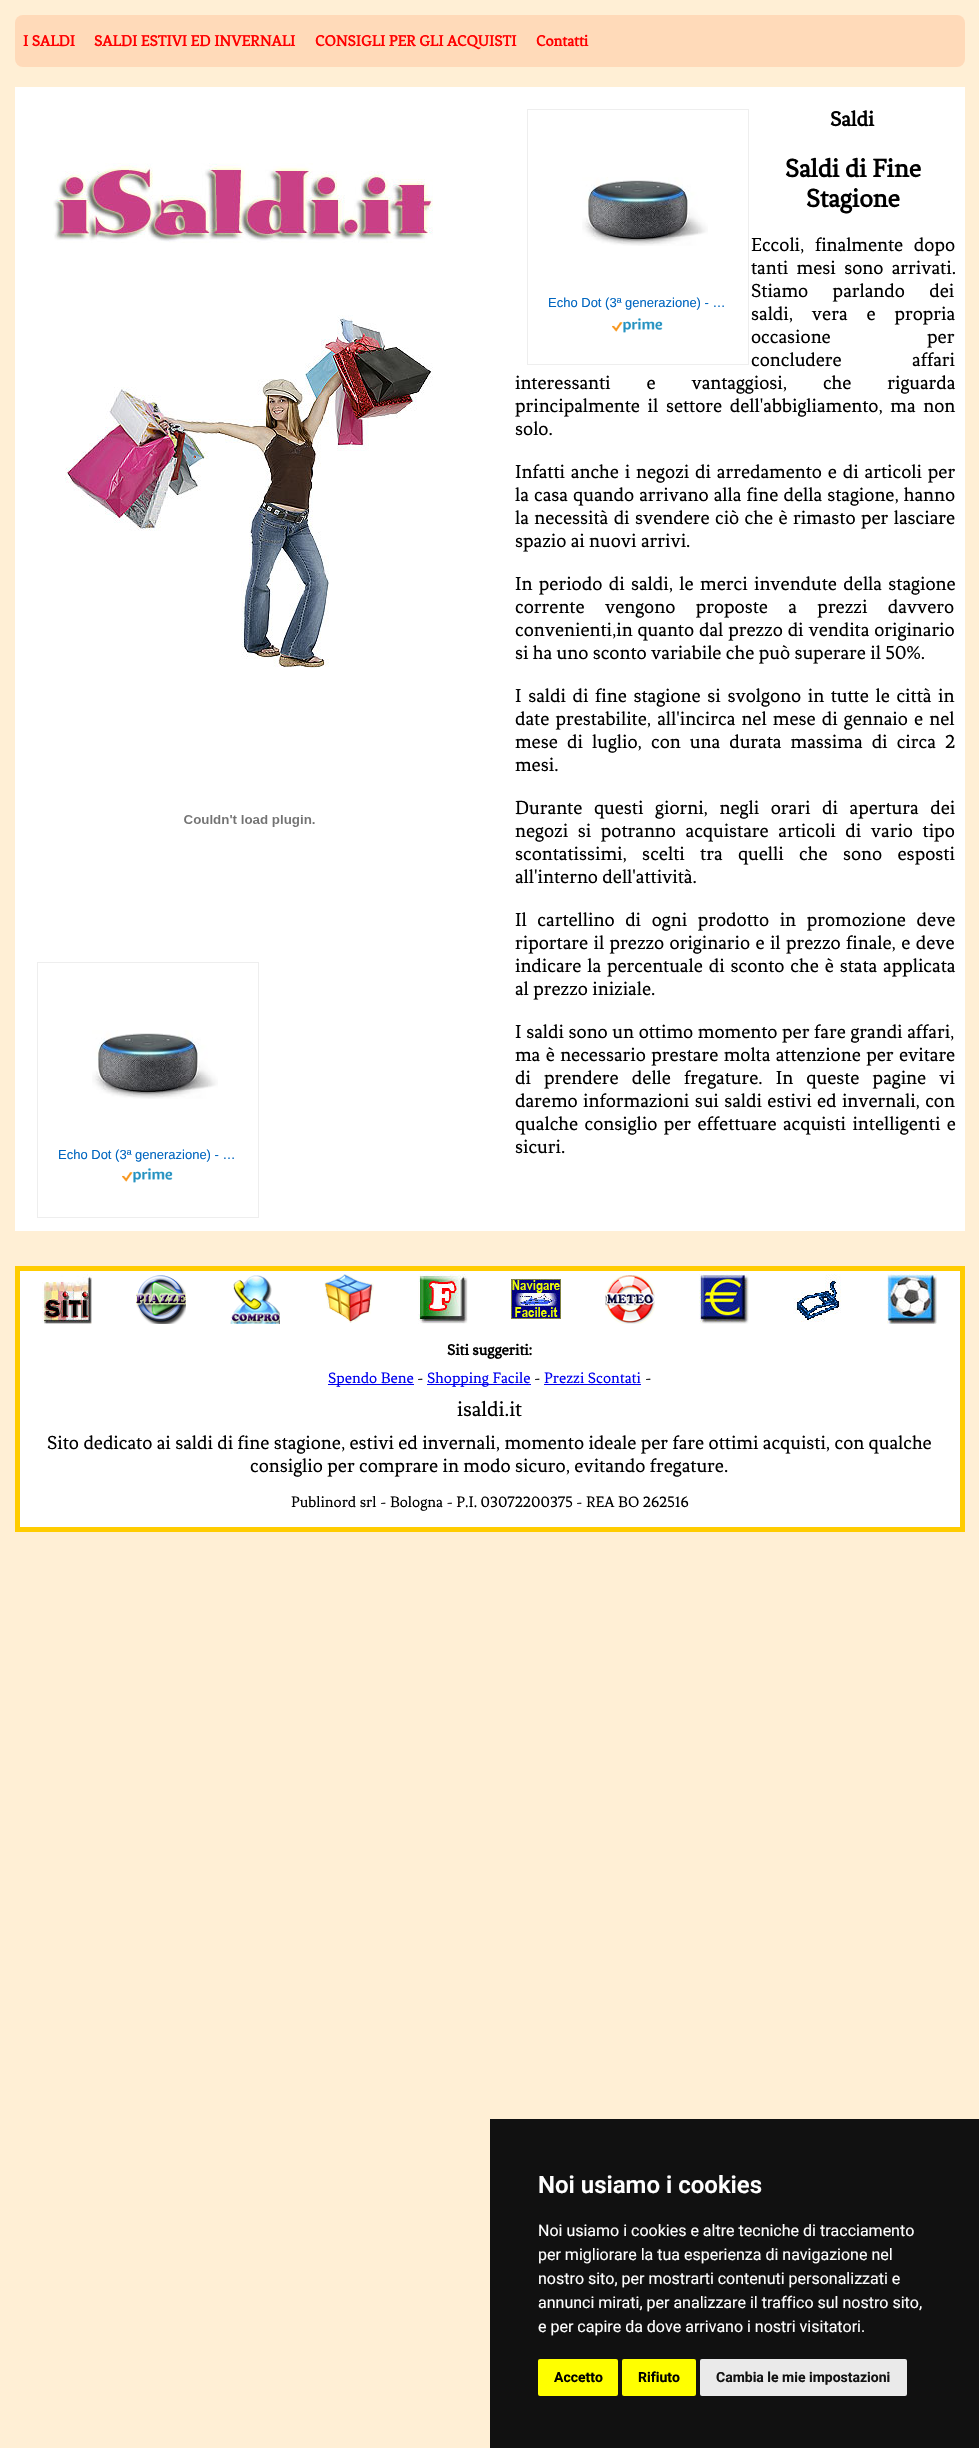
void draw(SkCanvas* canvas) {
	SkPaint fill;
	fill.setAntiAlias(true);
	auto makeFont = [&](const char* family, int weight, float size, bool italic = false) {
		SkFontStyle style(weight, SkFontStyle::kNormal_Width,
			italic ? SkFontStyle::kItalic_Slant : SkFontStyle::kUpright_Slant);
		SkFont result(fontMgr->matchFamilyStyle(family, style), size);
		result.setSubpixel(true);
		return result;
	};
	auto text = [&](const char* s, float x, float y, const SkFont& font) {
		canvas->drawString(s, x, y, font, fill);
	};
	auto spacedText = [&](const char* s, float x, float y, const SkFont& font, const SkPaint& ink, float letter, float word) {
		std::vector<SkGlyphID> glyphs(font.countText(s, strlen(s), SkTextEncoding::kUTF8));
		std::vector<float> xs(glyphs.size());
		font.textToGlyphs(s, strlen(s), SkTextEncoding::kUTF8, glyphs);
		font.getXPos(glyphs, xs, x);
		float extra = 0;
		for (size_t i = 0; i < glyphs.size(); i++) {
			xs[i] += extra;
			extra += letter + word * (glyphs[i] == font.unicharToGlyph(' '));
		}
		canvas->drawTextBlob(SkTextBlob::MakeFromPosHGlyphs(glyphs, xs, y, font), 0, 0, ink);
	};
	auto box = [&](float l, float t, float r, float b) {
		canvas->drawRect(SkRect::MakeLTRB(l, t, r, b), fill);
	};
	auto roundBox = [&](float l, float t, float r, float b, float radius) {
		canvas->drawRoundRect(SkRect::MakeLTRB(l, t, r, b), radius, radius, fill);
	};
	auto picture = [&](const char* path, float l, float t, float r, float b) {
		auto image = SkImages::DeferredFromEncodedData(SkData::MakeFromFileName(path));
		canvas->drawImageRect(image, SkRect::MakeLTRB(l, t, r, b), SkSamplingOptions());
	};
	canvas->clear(0xFFFFEFD5);
	fill.setColor(0xFFFFDAB9);
	roundBox(15, 15, 965, 67, 8);
	fill.setColor(0xFFFFFFFF);
	box(15, 87, 965, 1231);
	fill.setStyle(SkPaint::kStroke_Style);
	fill.setStrokeWidth(1);
	fill.setColor(0xFFEEEEEE);
	canvas->drawRect(SkRect::MakeLTRB(527.5f, 109.5f, 748.5f, 364.5f), fill);
	picture("image0.png", 582, 177, 708, 246);
	picture("image1.png", 612, 318, 663, 333);
	picture("image2.png", 53, 163, 433, 669);
	picture("image3.png", 184, 815, 315, 827);
	canvas->drawRect(SkRect::MakeLTRB(37.5f, 962.5f, 258.5f, 1217.5f), fill);
	picture("image0.png", 92, 1030, 218, 1099);
	picture("image4.png", 122, 1168, 173, 1183);
	fill.setStyle(SkPaint::kFill_Style);
	fill.setColor(0xFFFFFFFF);
	canvas->drawRect(SkRect::MakeLTRB(17.5f, 1268.5f, 962.5f, 1529.5f), fill);
	fill.setStyle(SkPaint::kStroke_Style);
	fill.setStrokeWidth(5);
	fill.setColor(0xFFFFCC00);
	canvas->drawRect(SkRect::MakeLTRB(17.5f, 1268.5f, 962.5f, 1529.5f), fill);
	picture("image5.png", 42, 1274, 92, 1324);
	picture("image6.png", 136, 1275, 186, 1324);
	picture("image7.png", 230, 1275, 280, 1324);
	picture("image8.png", 324, 1274, 374, 1323);
	picture("image9.png", 418, 1274, 468, 1324);
	picture("image10.png", 511, 1279, 561, 1319);
	picture("image11.png", 605, 1275, 655, 1324);
	picture("image12.png", 699, 1274, 749, 1324);
	picture("image13.png", 793, 1274, 841, 1322);
	picture("image14.png", 887, 1274, 937, 1324);
	fill.setStyle(SkPaint::kFill_Style);
	fill.setColor(0xFF0000EE);
	box(328, 1384, 414, 1385);
	box(427, 1384, 531, 1385);
	box(544, 1384, 641, 1385);
	fill.setColor(0xFF111111);
	box(490, 2119, 979, 2448);
	fill.setColor(0xFFFFFF00);
	roundBox(538, 2359, 618, 2396, 2);
	roundBox(622, 2359, 696, 2396, 2);
	fill.setColor(0xFFEAEAEA);
	roundBox(700, 2359, 907, 2396, 2);
	auto font1 = makeFont("Fenix", 700, 16);
	fill.setColor(0xFFFF0000);
	text("I SALDI", 23, 46, font1);
	text("SALDI ESTIVI ED INVERNALI", 94, 46, font1);
	text("CONSIGLI PER GLI ACQUISTI", 315, 46, font1);
	text("Contatti", 536, 46, font1);
	auto font2 = makeFont("Fenix", 700, 22);
	fill.setColor(0xFF000000);
	text("Saldi", 830, 126, font2);
	auto font3 = makeFont("Fenix", 700, 27);
	text("Saldi di Fine", 785, 177, font3);
	text("Stagione", 806, 207, font3);
	auto font4 = makeFont("Fenix", 400, 20);
	spacedText("Eccoli, finalmente dopo", 751, 251, font4, fill, 0, 6.25f);
	spacedText("tanti mesi sono arrivati.", 751, 274, font4, fill, 0, 4);
	spacedText("Stiamo parlando dei", 751, 297, font4, fill, 0, 20);
	spacedText("saldi, vera e propria", 751, 320, font4, fill, 0, 14.5f);
	spacedText("occasione per", 751, 343, font4, fill, 0, 92);
	spacedText("concludere affari", 751, 366, font4, fill, 0, 66);
	spacedText("interessanti e vantaggiosi, che riguarda", 515, 389, font4, fill, 0, 31.5f);
	spacedText("principalmente il settore dell'abbigliamento, ma non", 515, 412, font4, fill, 0, 3.25f);
	text("solo.", 515, 435, font4);
	spacedText("Infatti anche i negozi di arredamento e di articoli per", 515, 478, font4, fill, 0, 1.5f);
	spacedText("la casa quando arrivano alla fine della stagione, hanno", 515, 501, font4, fill, 0, 0.75f);
	spacedText("la necessità di svendere ciò che è rimasto per lasciare", 515, 524, font4, fill, 0, 1);
	text("spazio ai nuovi arrivi.", 515, 547, font4);
	spacedText("In periodo di saldi, le merci invendute della stagione", 515, 590, font4, fill, 0, 2);
	spacedText("corrente vengono proposte a prezzi davvero", 515, 613, font4, fill, 0, 16);
	spacedText("convenienti,in quanto dal prezzo di vendita originario", 515, 636, font4, fill, 0, 0.5f);
	text("si ha uno sconto variabile che può superare il 50%.", 515, 659, font4);
	spacedText("I saldi di fine stagione si svolgono in tutte le città in", 515, 702, font4, fill, 0, 2.25f);
	spacedText("date prestabilite, all'incirca nel mese di gennaio e nel", 515, 725, font4, fill, 0, 1.75f);
	spacedText("mese di luglio, con una durata massima di circa 2", 515, 748, font4, fill, 0, 4.75f);
	text("mesi.", 515, 771, font4);
	spacedText("Durante questi giorni, negli orari di apertura dei", 515, 814, font4, fill, 0, 7.25f);
	spacedText("negozi si potranno acquistare articoli di vario tipo", 515, 837, font4, fill, 0, 5.25f);
	spacedText("scontatissimi, scelti tra quelli che sono esposti", 515, 860, font4, fill, 0, 11);
	text("all'interno dell'attività.", 515, 883, font4);
	spacedText("Il cartellino di ogni prodotto in promozione deve", 515, 926, font4, fill, 0, 6.25f);
	spacedText("riportare il prezzo originario e il prezzo finale, e deve", 515, 949, font4, fill, 0, 1);
	spacedText("indicare la percentuale di sconto che è stata applicata", 515, 972, font4, fill, 0, 1.5f);
	text("al prezzo iniziale.", 515, 995, font4);
	spacedText("I saldi sono un ottimo momento per fare grandi affari,", 515, 1038, font4, fill, 0, 0.25f);
	spacedText("ma è necessario prestare molta attenzione per evitare", 515, 1061, font4, fill, 0, 1);
	spacedText("di prendere delle fregature. In queste pagine vi", 515, 1084, font4, fill, 0, 8.75f);
	spacedText("daremo informazioni sui saldi estivi ed invernali, con", 515, 1107, font4, fill, 0, 1);
	spacedText("qualche consiglio per effettuare acquisti intelligenti e", 515, 1130, font4, fill, 0, 2);
	text("sicuri.", 515, 1153, font4);
	auto font5 = makeFont("Liberation Sans", 400, 13);
	fill.setColor(0xFF0066C0);
	text("Echo Dot (3ª generazione) - …", 548, 307, font5);
	text("Echo Dot (3ª generazione) - …", 58, 1159, font5);
	fill.setColor(0xFF000000);
	text("Siti suggeriti:", 447, 1355, font1);
	auto font6 = makeFont("Fenix", 400, 16);
	fill.setColor(0xFF0000EE);
	text("Spendo Bene", 328, 1383, font6);
	fill.setColor(0xFF000000);
	text("-", 417, 1383, font6);
	fill.setColor(0xFF0000EE);
	text("Shopping Facile", 427, 1383, font6);
	fill.setColor(0xFF000000);
	text("-", 534, 1383, font6);
	fill.setColor(0xFF0000EE);
	text("Prezzi Scontati", 544, 1383, font6);
	fill.setColor(0xFF000000);
	text("-", 645, 1383, font6);
	auto font7 = makeFont("Fenix", 400, 22);
	text("isaldi.it", 457, 1416, font7);
	text("Sito dedicato ai saldi di fine stagione, estivi ed invernali, momento ideale per fare ottimi acquisti, con qualche", 47, 1449, font4);
	text("consiglio per comprare in modo sicuro, evitando fregature.", 250, 1472, font4);
	text("Publinord srl - Bologna - P.I. 03072200375 - REA BO 262516", 291, 1507, font6);
	auto font8 = makeFont("Roboto", 600, 24);
	fill.setColor(0xFFFFFFFF);
	text("Noi usiamo i cookies", 538, 2193, font8);
	auto font9 = makeFont("Roboto", 400, 16);
	text("Noi usiamo i cookies e altre tecniche di tracciamento", 538, 2236, font9);
	text("per migliorare la tua esperienza di navigazione nel", 538, 2260, font9);
	text("nostro sito, per mostrarti contenuti personalizzati e", 538, 2284, font9);
	text("annunci mirati, per analizzare il traffico sul nostro sito,", 538, 2308, font9);
	text("e per capire da dove arrivano i nostri visitatori.", 538, 2332, font9);
	auto font10 = makeFont("Roboto", 700, 14);
	fill.setColor(0xFF000000);
	text("Accetto", 554, 2382, font10);
	text("Rifiuto", 638, 2382, font10);
	fill.setColor(0xFF111111);
	text("Cambia le mie impostazioni", 716, 2382, font10);
}
